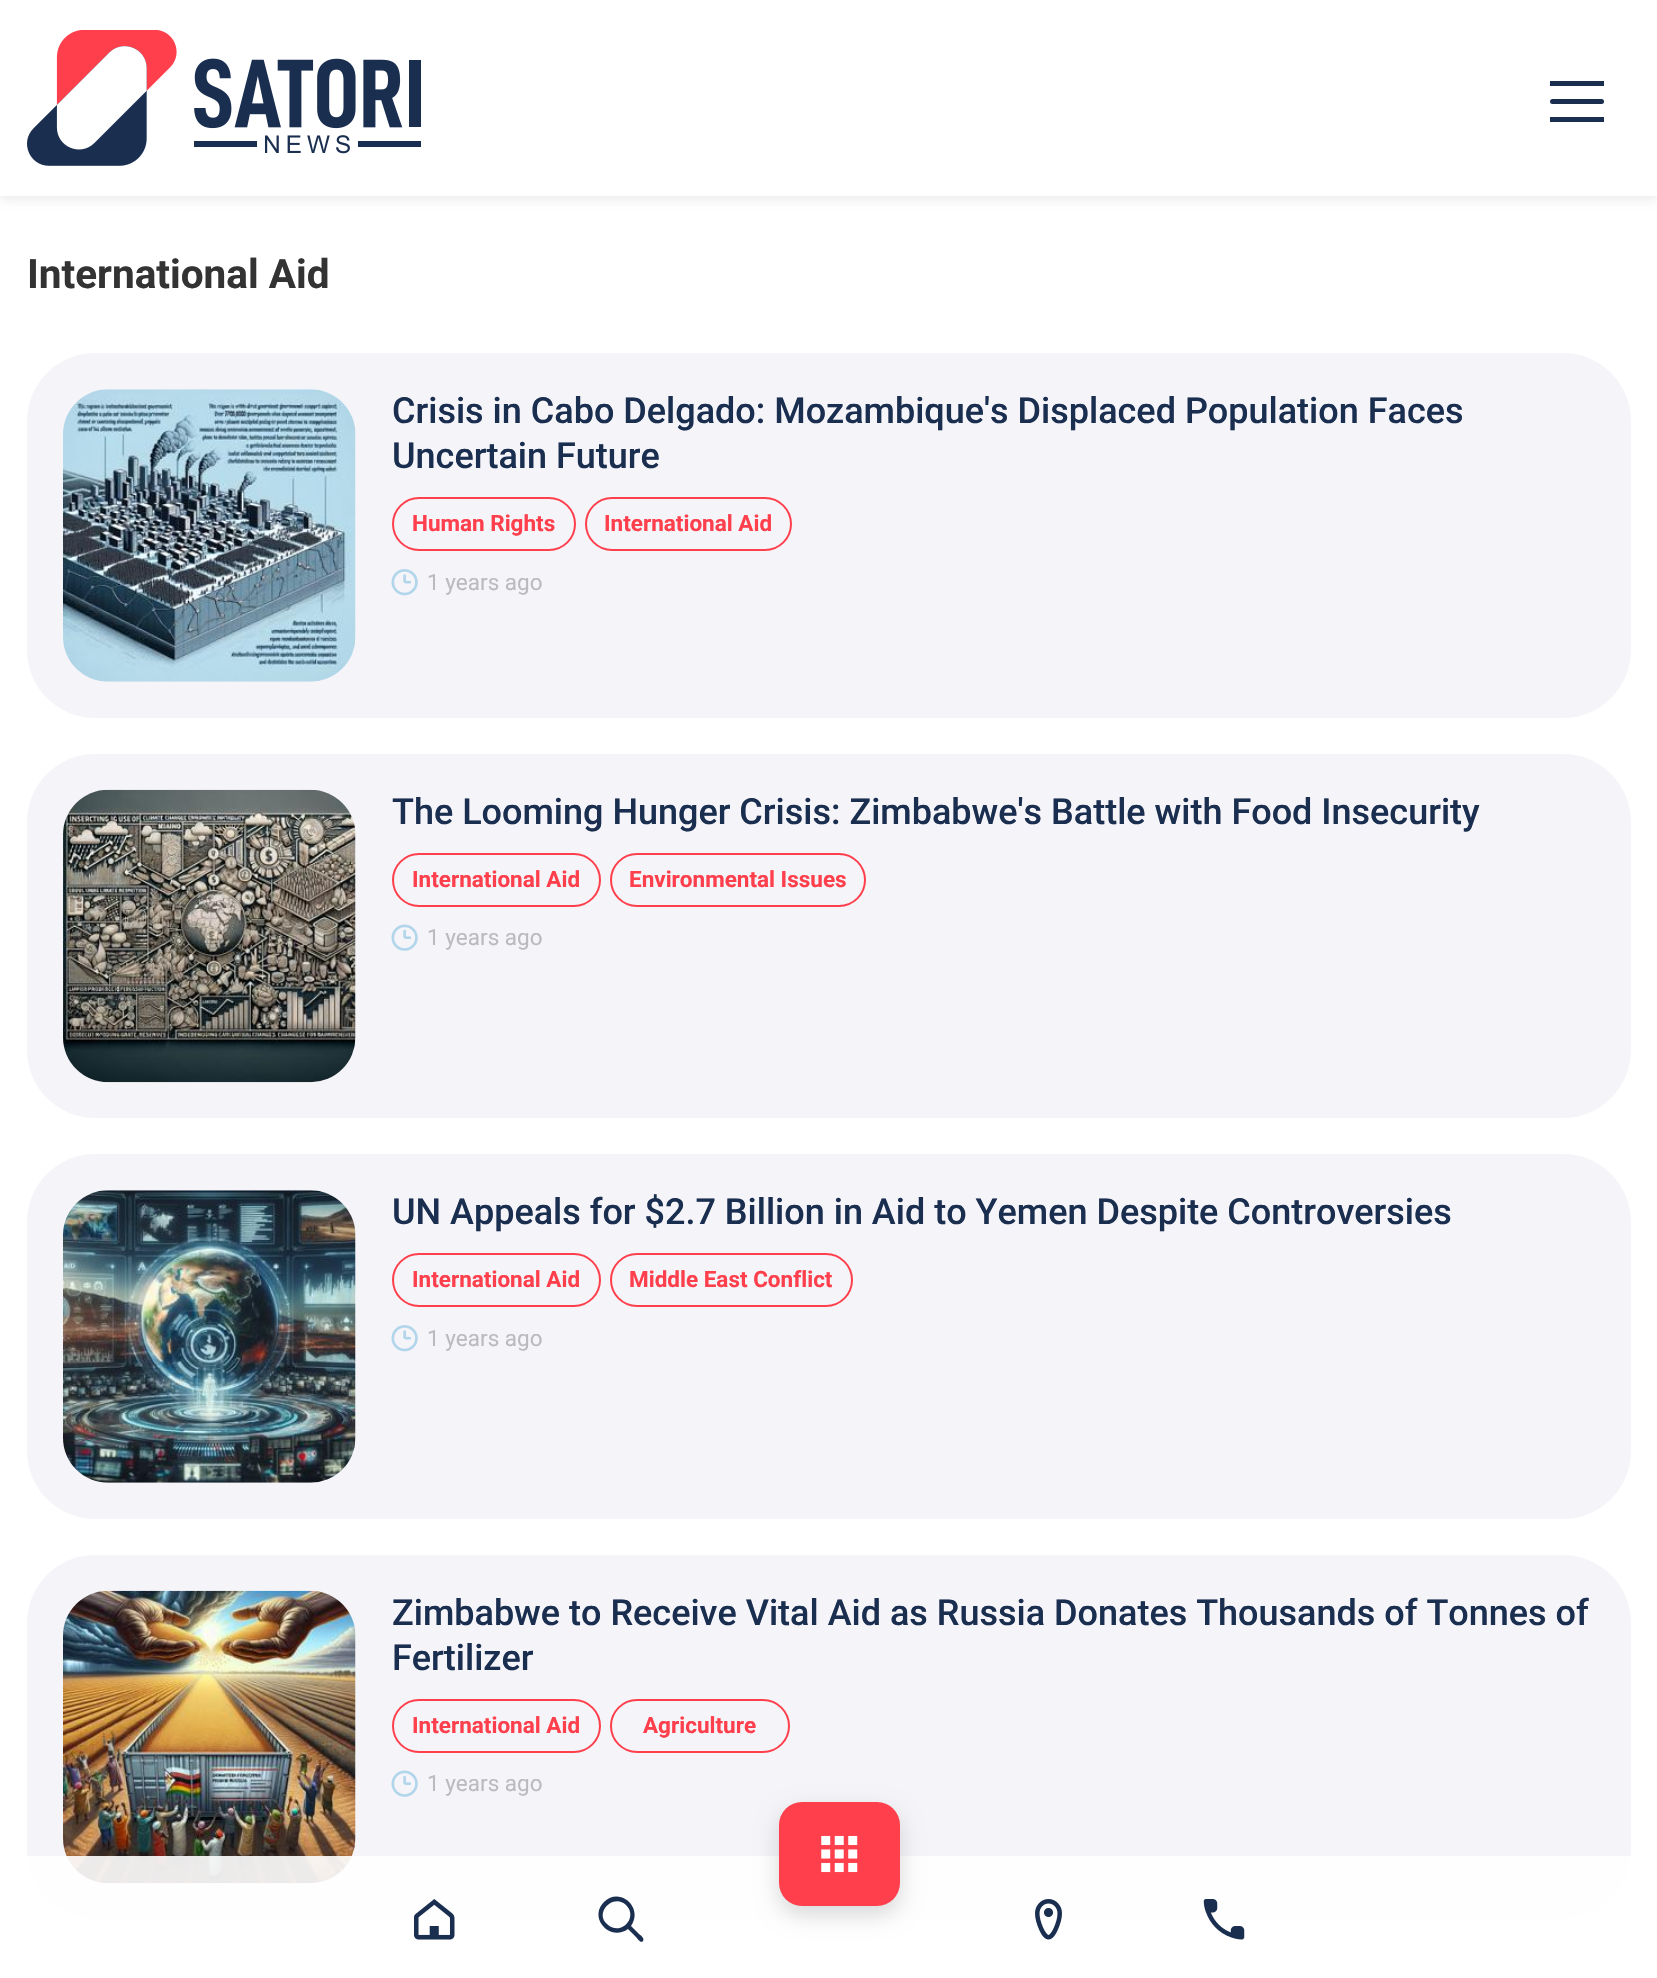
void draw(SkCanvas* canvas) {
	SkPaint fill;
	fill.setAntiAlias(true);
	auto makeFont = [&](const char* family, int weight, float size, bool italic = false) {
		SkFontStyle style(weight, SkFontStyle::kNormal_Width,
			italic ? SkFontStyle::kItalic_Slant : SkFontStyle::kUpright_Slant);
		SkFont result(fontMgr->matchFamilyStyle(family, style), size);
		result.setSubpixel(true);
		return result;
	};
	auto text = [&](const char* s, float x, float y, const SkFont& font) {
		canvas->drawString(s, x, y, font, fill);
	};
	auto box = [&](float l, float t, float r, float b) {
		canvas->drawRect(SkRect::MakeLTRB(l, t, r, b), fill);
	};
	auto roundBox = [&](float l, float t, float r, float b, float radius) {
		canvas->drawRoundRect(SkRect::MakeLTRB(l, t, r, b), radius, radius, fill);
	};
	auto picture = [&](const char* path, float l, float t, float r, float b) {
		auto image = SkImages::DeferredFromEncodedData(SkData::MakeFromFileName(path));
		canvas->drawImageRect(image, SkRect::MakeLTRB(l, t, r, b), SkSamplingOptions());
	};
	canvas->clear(0xFFFFFFFF);
	fill.setColor(0x12000000);
	fill.setMaskFilter(SkMaskFilter::MakeBlur(kNormal_SkBlurStyle, 4.5f));
	canvas->drawRect(SkRect::MakeLTRB(0, 5, 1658, 200), fill);
	fill.setMaskFilter(nullptr);
	fill.setColor(0xFFFFFFFF);
	box(0, 0, 1657, 196);
	picture("image0.png", 27, 30, 421, 166);
	fill.setColor(0xFF1A2E50);
	roundBox(1550, 99, 1604, 104, 2.5f);
	box(1550, 81, 1604, 86);
	box(1550, 117, 1604, 122);
	fill.setColor(0xFFF5F4F9);
	roundBox(27, 353, 1631, 718, 68);
	picture("image1.png", 63, 389, 356, 682);
	fill.setStyle(SkPaint::kStroke_Style);
	fill.setStrokeWidth(2);
	fill.setColor(0xFFFF3F4C);
	canvas->drawRoundRect(SkRect::MakeLTRB(393, 498, 575, 550), 26, 26, fill);
	canvas->drawRoundRect(SkRect::MakeLTRB(586, 498, 791, 550), 26, 26, fill);
	picture("image2.png", 391, 569, 418, 596);
	fill.setStyle(SkPaint::kFill_Style);
	fill.setColor(0xFFF5F4F9);
	roundBox(27, 754, 1631, 1118, 68);
	picture("image3.png", 63, 789, 356, 1083);
	fill.setStyle(SkPaint::kStroke_Style);
	fill.setColor(0xFFFF3F4C);
	canvas->drawRoundRect(SkRect::MakeLTRB(393, 854, 600, 906), 26, 26, fill);
	canvas->drawRoundRect(SkRect::MakeLTRB(611, 854, 865, 906), 26, 26, fill);
	picture("image4.png", 391, 924, 418, 951);
	fill.setStyle(SkPaint::kFill_Style);
	fill.setColor(0xFFF5F4F9);
	roundBox(27, 1154, 1631, 1519, 68);
	picture("image5.png", 63, 1190, 356, 1483);
	fill.setStyle(SkPaint::kStroke_Style);
	fill.setColor(0xFFFF3F4C);
	canvas->drawRoundRect(SkRect::MakeLTRB(393, 1254, 600, 1306), 26, 26, fill);
	canvas->drawRoundRect(SkRect::MakeLTRB(611, 1254, 852, 1306), 26, 26, fill);
	picture("image2.png", 391, 1325, 418, 1352);
	fill.setStyle(SkPaint::kFill_Style);
	fill.setColor(0xFFF5F4F9);
	roundBox(27, 1555, 1631, 1919, 68);
	picture("image6.png", 63, 1590, 356, 1884);
	fill.setStyle(SkPaint::kStroke_Style);
	fill.setColor(0xFFFF3F4C);
	canvas->drawRoundRect(SkRect::MakeLTRB(393, 1700, 600, 1752), 26, 26, fill);
	canvas->drawRoundRect(SkRect::MakeLTRB(611, 1700, 789, 1752), 26, 26, fill);
	picture("image4.png", 391, 1770, 418, 1797);
	fill.setStyle(SkPaint::kFill_Style);
	fill.setColor(0xE6FFFFFF);
	box(27, 1856, 1631, 1919);
	picture("image7.png", 414, 1899, 455, 1940);
	fill.setColor(0xFF1A2E50);
	canvas->drawPath(SkPathBuilder().moveTo(631, 1926).lineTo(639, 1934).cubicTo(640, 1935, 645, 1938, 643, 1941).cubicTo(641, 1944, 637, 1938, 636, 1937).lineTo(628, 1929).cubicTo(610, 1942, 588, 1918, 604, 1902).cubicTo(620, 1886, 644, 1908, 631, 1926).close().moveTo(607, 1924).cubicTo(620, 1937, 639, 1918, 626, 1905).cubicTo(614, 1893, 594, 1912, 607, 1924).close().detach(), fill);
	fill.setColor(0x26000000);
	fill.setMaskFilter(SkMaskFilter::MakeBlur(kNormal_SkBlurStyle, 11));
	canvas->drawRoundRect(SkRect::MakeLTRB(779, 1811, 900, 1915), 23, 23, fill);
	fill.setMaskFilter(nullptr);
	fill.setColor(0xFFFF3F4C);
	roundBox(779, 1802, 900, 1906, 23);
	picture("image8.png", 821, 1835, 858, 1873);
	picture("image9.png", 1035, 1899, 1062, 1940);
	picture("image10.png", 1203, 1899, 1245, 1940);
	auto font1 = makeFont("Roboto", 700, 40.5f);
	fill.setColor(0xFF333333);
	text("International Aid", 27, 288, font1);
	auto font2 = makeFont("Roboto", 500, 36);
	fill.setColor(0xFF1A2E50);
	text("Crisis in Cabo Delgado: Mozambique's Displaced Population Faces", 392, 423, font2);
	text("Uncertain Future", 392, 468, font2);
	auto font3 = makeFont("Roboto", 700, 22.5f);
	fill.setColor(0xFFFF3F4C);
	text("Human Rights", 412, 531, font3);
	text("International Aid", 604, 531, font3);
	auto font4 = makeFont("Roboto", 400, 22.5f);
	fill.setColor(0xFFBBBABE);
	text("1 years ago", 427, 590, font4);
	fill.setColor(0xFF1A2E50);
	text("The Looming Hunger Crisis: Zimbabwe's Battle with Food Insecurity", 392, 824, font2);
	fill.setColor(0xFFFF3F4C);
	text("International Aid", 412, 887, font3);
	text("Environmental Issues", 629, 887, font3);
	fill.setColor(0xFFBBBABE);
	text("1 years ago", 427, 945, font4);
	fill.setColor(0xFF1A2E50);
	text("UN Appeals for $2.7 Billion in Aid to Yemen Despite Controversies", 392, 1224, font2);
	fill.setColor(0xFFFF3F4C);
	text("International Aid", 412, 1287, font3);
	text("Middle East Conflict", 629, 1287, font3);
	fill.setColor(0xFFBBBABE);
	text("1 years ago", 427, 1346, font4);
	fill.setColor(0xFF1A2E50);
	text("Zimbabwe to Receive Vital Aid as Russia Donates Thousands of Tonnes of", 392, 1625, font2);
	text("Fertilizer", 392, 1670, font2);
	fill.setColor(0xFFFF3F4C);
	text("International Aid", 412, 1733, font3);
	text("Agriculture", 643, 1733, font3);
	fill.setColor(0xFFBBBABE);
	text("1 years ago", 427, 1791, font4);
}
